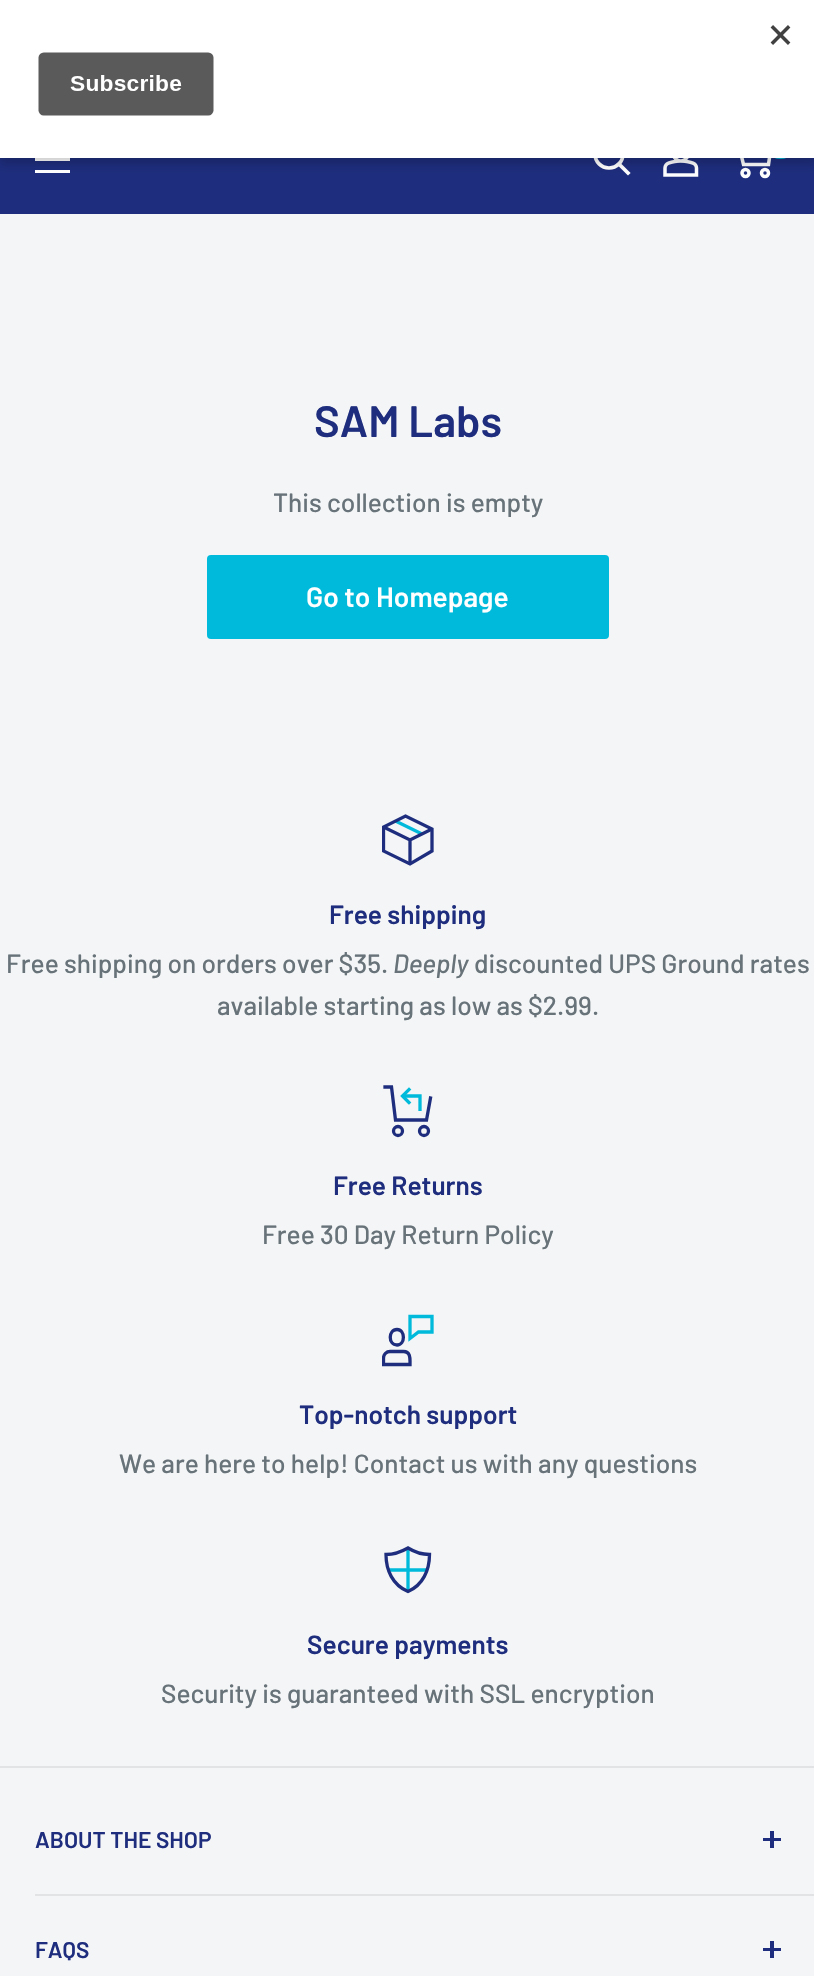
void draw(SkCanvas* canvas) {
	SkPaint fill;
	fill.setAntiAlias(true);
	auto makeFont = [&](const char* family, int weight, float size, bool italic = false) {
		SkFontStyle style(weight, SkFontStyle::kNormal_Width,
			italic ? SkFontStyle::kItalic_Slant : SkFontStyle::kUpright_Slant);
		SkFont result(fontMgr->matchFamilyStyle(family, style), size);
		result.setSubpixel(true);
		return result;
	};
	auto text = [&](const char* s, float x, float y, const SkFont& font) {
		canvas->drawString(s, x, y, font, fill);
	};
	auto box = [&](float l, float t, float r, float b) {
		canvas->drawRect(SkRect::MakeLTRB(l, t, r, b), fill);
	};
	auto roundBox = [&](float l, float t, float r, float b, float radius) {
		canvas->drawRoundRect(SkRect::MakeLTRB(l, t, r, b), radius, radius, fill);
	};
	auto picture = [&](const char* path, float l, float t, float r, float b) {
		auto image = SkImages::DeferredFromEncodedData(SkData::MakeFromFileName(path));
		canvas->drawImageRect(image, SkRect::MakeLTRB(l, t, r, b), SkSamplingOptions());
	};
	canvas->clear(0xFFF3F5F6);
	fill.setColor(0xFF1E2D7D);
	box(0, 158, 814, 214);
	fill.setColor(0xFFFFFFFF);
	canvas->drawPath(SkPathBuilder(SkPathFillType::kEvenOdd).moveTo(35, 170).lineTo(70, 170).lineTo(70, 173).lineTo(35, 173).close().moveTo(35, 145).lineTo(70, 145).lineTo(70, 149).lineTo(35, 149).close().moveTo(35, 157.5f).lineTo(70, 157.5f).lineTo(70, 161).lineTo(35, 161).close().detach(), fill);
	fill.setStyle(SkPaint::kStroke_Style);
	fill.setStrokeWidth(3.7f);
	fill.setStrokeCap(SkPaint::kSquare_Cap);
	canvas->drawPath(SkPathBuilder().moveTo(628, 173).lineTo(619, 164).detach(), fill);
	fill.setStrokeCap(SkPaint::kButt_Cap);
	canvas->drawCircle(609, 154, 14, fill);
	picture("image1.png", 663, 158, 699, 177);
	fill.setStrokeWidth(3.5f);
	canvas->drawCircle(745.5f, 173, 3.5f, fill);
	canvas->drawCircle(765, 173, 3.5f, fill);
	canvas->drawPath(SkPathBuilder().moveTo(739, 147).lineTo(771, 147).lineTo(768.5f, 164.5f).lineTo(743.5f, 164.5f).lineTo(737, 138).lineTo(726, 138).detach(), fill);
	fill.setStyle(SkPaint::kFill_Style);
	fill.setColor(0xFF00BADB);
	roundBox(763, 123, 798, 159, 17.5f);
	fill.setColor(0x33000000);
	fill.setMaskFilter(SkMaskFilter::MakeBlur(kNormal_SkBlurStyle, 5));
	canvas->drawRect(SkRect::MakeLTRB(0, 5, 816, 163), fill);
	fill.setMaskFilter(nullptr);
	fill.setColor(0xFFFFFFFF);
	box(0, 0, 814, 158);
	picture("image0.png", 38, 25, 791, 116);
	fill.setColor(0xFF00BADB);
	roundBox(207, 555, 609, 639, 4);
	fill.setStyle(SkPaint::kStroke_Style);
	fill.setStrokeWidth(3.3f);
	canvas->drawPath(SkPathBuilder().moveTo(395.5f, 821).lineTo(422, 834).detach(), fill);
	fill.setColor(0xFF1E2D7D);
	canvas->drawPath(SkPathBuilder().moveTo(432, 829).lineTo(410, 840).lineTo(383.5f, 827).moveTo(410, 840).lineTo(410, 864).detach(), fill);
	canvas->save();
	canvas->clipRect(SkRect::MakeLTRB(382, 814, 434, 866));
	fill.setStrokeCap(SkPaint::kSquare_Cap);
	canvas->drawPath(SkPathBuilder().moveTo(432, 829).lineTo(432, 851).lineTo(410, 864).lineTo(383.5f, 851).lineTo(383.5f, 827).lineTo(405.5f, 816).close().detach(), fill);
	canvas->restore();
	fill.setStrokeCap(SkPaint::kButt_Cap);
	fill.setColor(0xFF00BADB);
	canvas->drawPath(SkPathBuilder().moveTo(402.5f, 1096).lineTo(420, 1096).lineTo(420, 1111).detach(), fill);
	fill.setStrokeCap(SkPaint::kSquare_Cap);
	canvas->drawPath(SkPathBuilder().moveTo(409, 1102.5f).lineTo(402.5f, 1096).lineTo(409, 1089.5f).detach(), fill);
	fill.setColor(0xFF1E2D7D);
	canvas->drawPath(SkPathBuilder().moveTo(430.5f, 1098).lineTo(426.5f, 1120).lineTo(395.5f, 1120).lineTo(391.5f, 1087).lineTo(385, 1087).detach(), fill);
	fill.setStrokeCap(SkPaint::kButt_Cap);
	canvas->drawCircle(398, 1131, 4.5f, fill);
	canvas->drawCircle(424, 1131, 4.5f, fill);
	canvas->save();
	canvas->clipRect(SkRect::MakeLTRB(382, 1314, 434, 1367));
	fill.setStrokeCap(SkPaint::kSquare_Cap);
	canvas->drawPath(SkPathBuilder().moveTo(403.5f, 1351.5f).lineTo(390, 1351.5f).cubicTo(386.5f, 1351.5f, 383.5f, 1354.5f, 383.5f, 1358).lineTo(383.5f, 1364.5f).lineTo(410, 1364.5f).cubicTo(410, 1359.5f, 411, 1351.5f, 403.5f, 1351.5f).close().moveTo(397, 1345).cubicTo(388, 1345, 388, 1329.5f, 397, 1329.5f).cubicTo(405.5f, 1329.5f, 405.5f, 1345, 397, 1345).close().detach(), fill);
	canvas->restore();
	fill.setColor(0xFF00BADB);
	canvas->drawPath(SkPathBuilder().moveTo(410, 1316.5f).lineTo(410, 1338.5f).lineTo(418.5f, 1332).lineTo(432, 1332).lineTo(432, 1316.5f).close().detach(), fill);
	fill.setStrokeCap(SkPaint::kButt_Cap);
	canvas->drawPath(SkPathBuilder().moveTo(408, 1548).lineTo(408, 1591.5f).moveTo(427, 1570).lineTo(388.5f, 1570).detach(), fill);
	fill.setStrokeCap(SkPaint::kSquare_Cap);
	fill.setColor(0xFF1E2D7D);
	canvas->drawPath(SkPathBuilder().moveTo(408, 1548).cubicTo(401, 1552, 392.5f, 1554.5f, 386, 1554.5f).cubicTo(386, 1570, 392.5f, 1585, 408, 1591.5f).cubicTo(423, 1585, 429.5f, 1570, 429.5f, 1554.5f).cubicTo(423, 1554.5f, 414.5f, 1552, 408, 1548).close().detach(), fill);
	fill.setStyle(SkPaint::kFill_Style);
	fill.setColor(0xFFE1E3E4);
	box(0, 1766, 814, 1768);
	box(35, 1894, 814, 1896);
	fill.setColor(0xFF1E2D7D);
	box(770, 1831, 774, 1848);
	box(763, 1838, 781, 1841);
	box(770, 1941, 774, 1958);
	box(763, 1948, 781, 1951);
	auto font1 = makeFont("Barlow", 600, 43.75f);
	text("SAM Labs", 314, 437, font1);
	auto font2 = makeFont("Barlow", 500, 26.25f);
	fill.setColor(0xFF677279);
	text("This collection is empty", 273, 512, font2);
	auto font3 = makeFont("Barlow", 600, 28);
	fill.setColor(0xFFFFFFFF);
	text("Go to Homepage", 306, 607, font3);
	auto font4 = makeFont("Barlow", 600, 26.25f);
	fill.setColor(0xFF1E2D7D);
	text("Free shipping", 329, 924, font4);
	fill.setColor(0xFF677279);
	text("Free shipping on orders over $35.", 6, 973, font2);
	auto font5 = makeFont("Barlow", 500, 26.25f, true);
	text("Deeply", 393, 973, font5);
	text("discounted UPS Ground rates", 474, 973, font2);
	text("available starting as low as $2.99.", 217, 1015, font2);
	fill.setColor(0xFF1E2D7D);
	text("Free Returns", 333, 1195, font4);
	fill.setColor(0xFF677279);
	text("Free 30 Day Return Policy", 262, 1244, font2);
	fill.setColor(0xFF1E2D7D);
	text("Top-notch support", 299, 1424, font4);
	fill.setColor(0xFF677279);
	text("We are here to help! Contact us with any questions", 119, 1473, font2);
	fill.setColor(0xFF1E2D7D);
	text("Secure payments", 307, 1654, font4);
	fill.setColor(0xFF677279);
	text("Security is guaranteed with SSL encryption", 161, 1703, font2);
	auto font6 = makeFont("Barlow", 600, 22.75f);
	fill.setColor(0xFF1E2D7D);
	text("ABOUT THE SHOP", 35, 1848, font6);
	text("FAQS", 35, 1958, font6);
}
